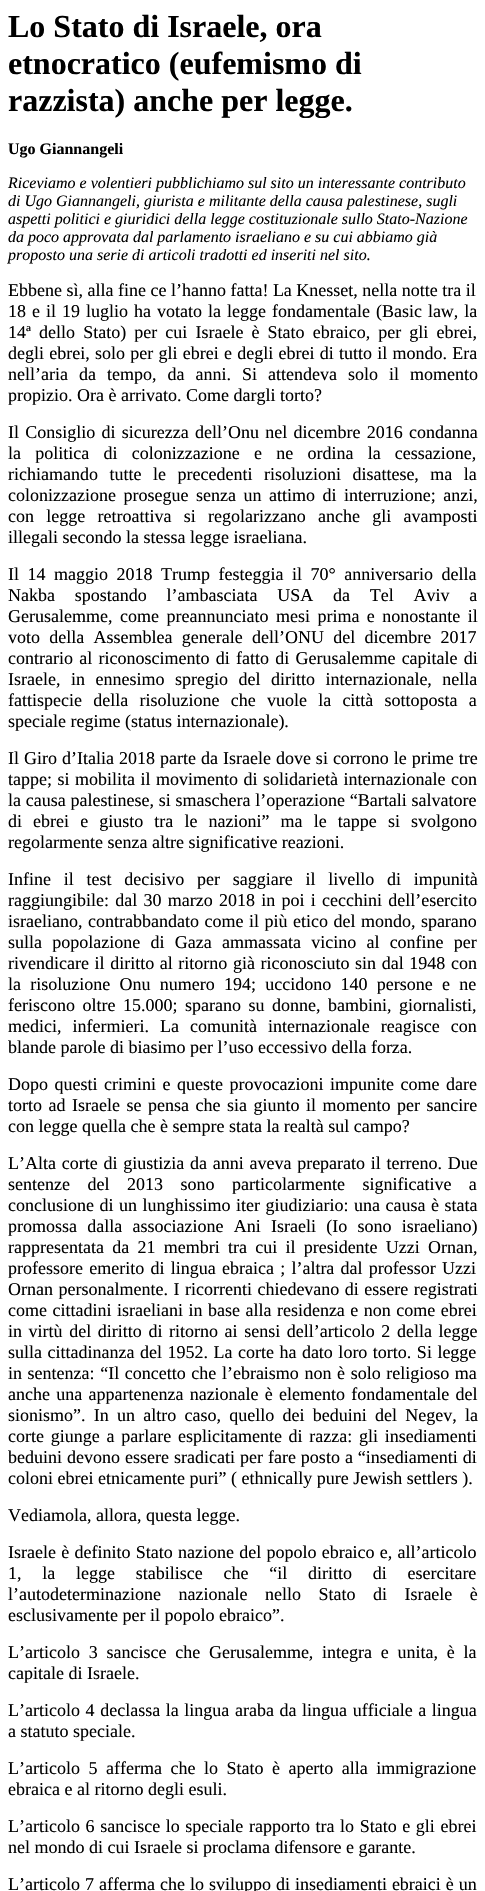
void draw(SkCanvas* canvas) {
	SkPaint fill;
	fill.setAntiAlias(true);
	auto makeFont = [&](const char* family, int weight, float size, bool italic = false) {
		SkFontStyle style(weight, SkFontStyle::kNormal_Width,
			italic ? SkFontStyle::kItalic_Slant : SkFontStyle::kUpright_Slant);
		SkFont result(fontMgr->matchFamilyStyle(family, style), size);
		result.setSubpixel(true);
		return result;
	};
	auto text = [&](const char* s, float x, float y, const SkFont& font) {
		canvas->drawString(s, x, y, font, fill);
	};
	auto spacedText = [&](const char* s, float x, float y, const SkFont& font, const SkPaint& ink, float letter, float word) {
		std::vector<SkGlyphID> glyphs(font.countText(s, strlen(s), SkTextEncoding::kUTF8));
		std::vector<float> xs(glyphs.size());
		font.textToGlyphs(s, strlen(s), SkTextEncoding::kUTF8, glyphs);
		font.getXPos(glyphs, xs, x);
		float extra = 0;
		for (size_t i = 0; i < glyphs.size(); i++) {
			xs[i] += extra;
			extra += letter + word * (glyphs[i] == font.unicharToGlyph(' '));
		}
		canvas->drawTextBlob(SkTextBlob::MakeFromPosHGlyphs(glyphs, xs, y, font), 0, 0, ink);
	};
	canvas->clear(0xFFFFFFFF);
	auto font1 = makeFont("Liberation Serif", 700, 32);
	fill.setColor(0xFF000000);
	text("Lo Stato di Israele, ora", 8, 37, font1);
	text("etnocratico (eufemismo di", 8, 74, font1);
	text("razzista) anche per legge.", 8, 111, font1);
	auto font2 = makeFont("Liberation Serif", 700, 16);
	text("Ugo Giannangeli", 8, 154, font2);
	auto font3 = makeFont("Liberation Serif", 400, 16, true);
	text("Riceviamo e volentieri pubblichiamo sul sito un interessante contributo", 8, 188, font3);
	text("di Ugo Giannangeli, giurista e militante della causa palestinese, sugli", 8, 206, font3);
	text("aspetti politici e giuridici della legge costituzionale sullo Stato-Nazione", 8, 224, font3);
	text("da poco approvata dal parlamento israeliano e su cui abbiamo già", 8, 242, font3);
	text("proposto una serie di articoli tradotti ed inseriti nel sito.", 8, 260, font3);
	auto font4 = makeFont("Liberation Serif", 400, 18);
	text("Ebbene sì, alla fine ce l’hanno fatta! La Knesset, nella notte tra il", 8, 296, font4);
	spacedText("18 e il 19 luglio ha votato la legge fondamentale (Basic law, la", 8, 317, font4, fill, 0, 1.5f);
	spacedText("14ª dello Stato) per cui Israele è Stato ebraico, per gli ebrei,", 8, 338, font4, fill, 0, 3.6f);
	spacedText("degli ebrei, solo per gli ebrei e degli ebrei di tutto il mondo. Era", 8, 359, font4, fill, 0, 0.75f);
	spacedText("nell’aria da tempo, da anni. Si attendeva solo il momento", 8, 380, font4, fill, 0, 6.5f);
	text("propizio. Ora è arrivato. Come dargli torto?", 8, 401, font4);
	spacedText("Il Consiglio di sicurezza dell’Onu nel dicembre 2016 condanna", 8, 438, font4, fill, 0, 1.75f);
	spacedText("la politica di colonizzazione e ne ordina la cessazione,", 8, 459, font4, fill, 0, 9.75f);
	spacedText("richiamando tutte le precedenti risoluzioni disattese, ma la", 8, 480, font4, fill, 0, 7);
	spacedText("colonizzazione prosegue senza un attimo di interruzione; anzi,", 8, 501, font4, fill, 0, 3);
	spacedText("con legge retroattiva si regolarizzano anche gli avamposti", 8, 522, font4, fill, 0, 7.75f);
	text("illegali secondo la stessa legge israeliana.", 8, 543, font4);
	spacedText("Il 14 maggio 2018 Trump festeggia il 70° anniversario della", 8, 580, font4, fill, 0, 4);
	spacedText("Nakba spostando l’ambasciata USA da Tel Aviv a", 8, 601, font4, fill, 0, 15.25f);
	spacedText("Gerusalemme, come preannunciato mesi prima e nonostante il", 8, 622, font4, fill, 0, 3);
	spacedText("voto della Assemblea generale dell’ONU del dicembre 2017", 8, 643, font4, fill, 0, 4.75f);
	spacedText("contrario al riconoscimento di fatto di Gerusalemme capitale di", 8, 664, font4, fill, 0, 1.75f);
	spacedText("Israele, in ennesimo spregio del diritto internazionale, nella", 8, 685, font4, fill, 0, 6);
	spacedText("fattispecie della risoluzione che vuole la città sottoposta a", 8, 706, font4, fill, 0, 6.75f);
	text("speciale regime (status internazionale).", 8, 727, font4);
	spacedText("Il Giro d’Italia 2018 parte da Israele dove si corrono le prime tre", 8, 764, font4, fill, 0, 0.5f);
	spacedText("tappe; si mobilita il movimento di solidarietà internazionale con", 8, 785, font4, fill, 0, 1);
	spacedText("la causa palestinese, si smaschera l’operazione “Bartali salvatore", 8, 806, font4, fill, 0, 0.25f);
	spacedText("di ebrei e giusto tra le nazioni” ma le tappe si svolgono", 8, 827, font4, fill, 0, 6.6f);
	text("regolarmente senza altre significative reazioni.", 8, 848, font4);
	spacedText("Infine il test decisivo per saggiare il livello di impunità", 8, 885, font4, fill, 0, 8.25f);
	spacedText("raggiungibile: dal 30 marzo 2018 in poi i cecchini dell’esercito", 8, 906, font4, fill, 0, 1.75f);
	spacedText("israeliano, contrabbandato come il più etico del mondo, sparano", 8, 927, font4, fill, 0, 1);
	spacedText("sulla popolazione di Gaza ammassata vicino al confine per", 8, 948, font4, fill, 0, 5.75f);
	spacedText("rivendicare il diritto al ritorno già riconosciuto sin dal 1948 con", 8, 969, font4, fill, 0, 1.1f);
	spacedText("la risoluzione Onu numero 194; uccidono 140 persone e ne", 8, 990, font4, fill, 0, 4.75f);
	spacedText("feriscono oltre 15.000; sparano su donne, bambini, giornalisti,", 8, 1011, font4, fill, 0, 3);
	spacedText("medici, infermieri. La comunità internazionale reagisce con", 8, 1032, font4, fill, 0, 6.5f);
	text("blande parole di biasimo per l’uso eccessivo della forza.", 8, 1053, font4);
	spacedText("Dopo questi crimini e queste provocazioni impunite come dare", 8, 1090, font4, fill, 0, 2);
	spacedText("torto ad Israele se pensa che sia giunto il momento per sancire", 8, 1111, font4, fill, 0, 2);
	text("con legge quella che è sempre stata la realtà sul campo?", 8, 1132, font4);
	spacedText("L’Alta corte di giustizia da anni aveva preparato il terreno. Due", 8, 1169, font4, fill, 0, 1.25f);
	spacedText("sentenze del 2013 sono particolarmente significative a", 8, 1190, font4, fill, 0, 13);
	spacedText("conclusione di un lunghissimo iter giudiziario: una causa è stata", 8, 1211, font4, fill, 0, 1);
	spacedText("promossa dalla associazione Ani Israeli (Io sono israeliano)", 8, 1232, font4, fill, 0, 5.75f);
	spacedText("rappresentata da 21 membri tra cui il presidente Uzzi Ornan,", 8, 1253, font4, fill, 0, 3.75f);
	spacedText("professore emerito di lingua ebraica ; l’altra dal professor Uzzi", 8, 1274, font4, fill, 0, 1.75f);
	spacedText("Ornan personalmente. I ricorrenti chiedevano di essere registrati", 8, 1295, font4, fill, 0, 1);
	spacedText("come cittadini israeliani in base alla residenza e non come ebrei", 8, 1316, font4, fill, 0, 1);
	spacedText("in virtù del diritto di ritorno ai sensi dell’articolo 2 della legge", 8, 1337, font4, fill, 0, 2.1f);
	spacedText("sulla cittadinanza del 1952. La corte ha dato loro torto. Si legge", 8, 1358, font4, fill, 0, 1);
	spacedText("in sentenza: “Il concetto che l’ebraismo non è solo religioso ma", 8, 1379, font4, fill, 0, 1.1f);
	spacedText("anche una appartenenza nazionale è elemento fondamentale del", 8, 1400, font4, fill, 0, 1.75f);
	spacedText("sionismo”. In un altro caso, quello dei beduini del Negev, la", 8, 1421, font4, fill, 0, 3.75f);
	spacedText("corte giunge a parlare esplicitamente di razza: gli insediamenti", 8, 1442, font4, fill, 0, 2.25f);
	spacedText("beduini devono essere sradicati per fare posto a “insediamenti di", 8, 1463, font4, fill, 0, 0.5f);
	text("coloni ebrei etnicamente puri” ( ethnically pure Jewish settlers ).", 8, 1484, font4);
	text("Vediamola, allora, questa legge.", 8, 1521, font4);
	spacedText("Israele è definito Stato nazione del popolo ebraico e, all’articolo", 8, 1558, font4, fill, 0, 0.75f);
	spacedText("1, la legge stabilisce che “il diritto di esercitare", 8, 1579, font4, fill, 0, 16.25f);
	spacedText("l’autodeterminazione nazionale nello Stato di Israele è", 8, 1600, font4, fill, 0, 13);
	text("esclusivamente per il popolo ebraico”.", 8, 1621, font4);
	spacedText("L’articolo 3 sancisce che Gerusalemme, integra e unita, è la", 8, 1658, font4, fill, 0, 4.25f);
	text("capitale di Israele.", 8, 1679, font4);
	spacedText("L’articolo 4 declassa la lingua araba da lingua ufficiale a lingua", 8, 1716, font4, fill, 0, 1.1f);
	text("a statuto speciale.", 8, 1737, font4);
	spacedText("L’articolo 5 afferma che lo Stato è aperto alla immigrazione", 8, 1774, font4, fill, 0, 4);
	text("ebraica e al ritorno degli esuli.", 8, 1795, font4);
	spacedText("L’articolo 6 sancisce lo speciale rapporto tra lo Stato e gli ebrei", 8, 1832, font4, fill, 0, 1.1f);
	text("nel mondo di cui Israele si proclama difensore e garante.", 8, 1853, font4);
	spacedText("L’articolo 7 afferma che lo sviluppo di insediamenti ebraici è un", 8, 1890, font4, fill, 0, 0.5f);
}
